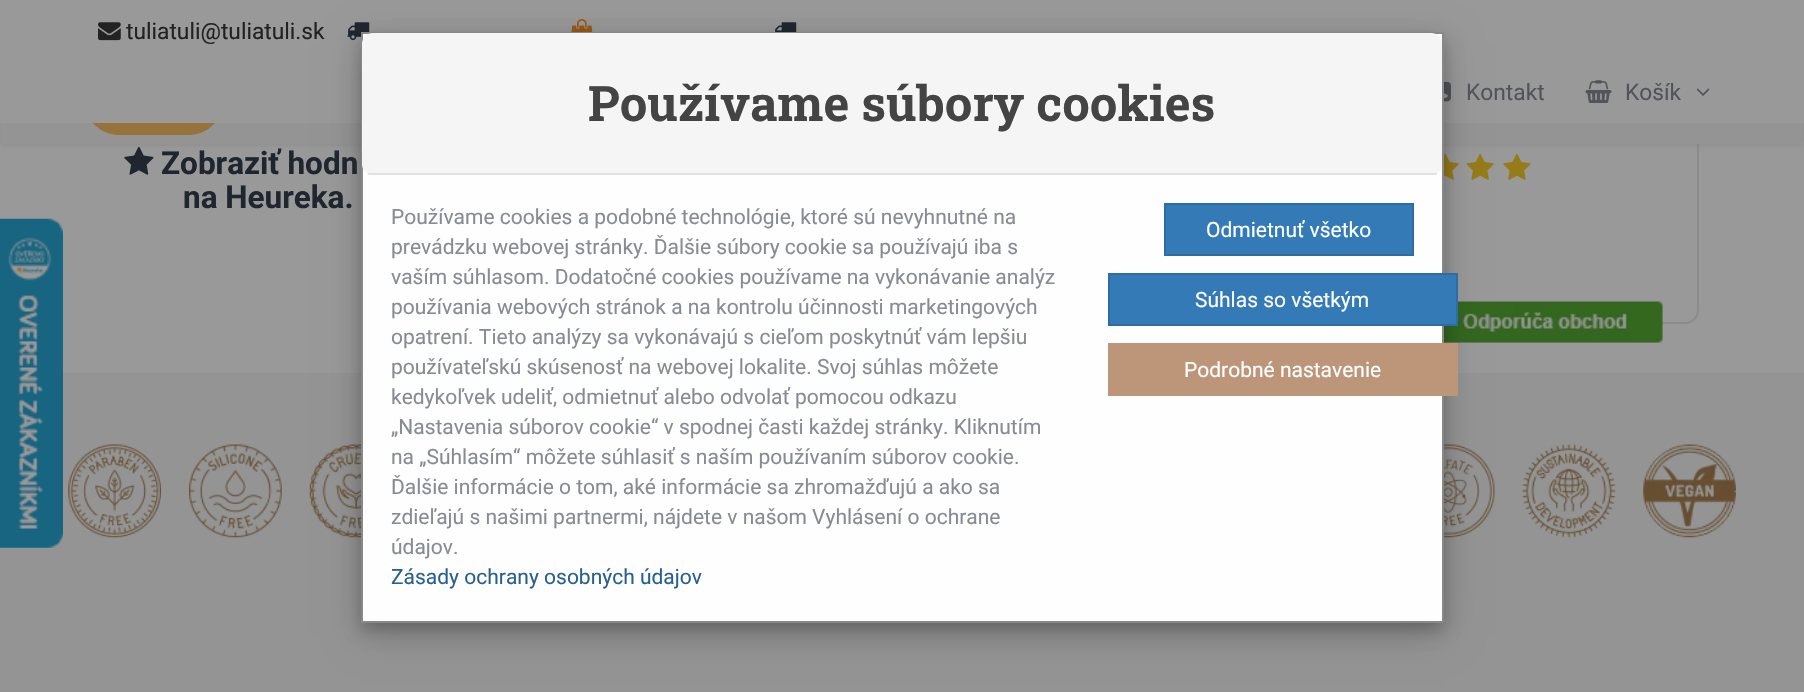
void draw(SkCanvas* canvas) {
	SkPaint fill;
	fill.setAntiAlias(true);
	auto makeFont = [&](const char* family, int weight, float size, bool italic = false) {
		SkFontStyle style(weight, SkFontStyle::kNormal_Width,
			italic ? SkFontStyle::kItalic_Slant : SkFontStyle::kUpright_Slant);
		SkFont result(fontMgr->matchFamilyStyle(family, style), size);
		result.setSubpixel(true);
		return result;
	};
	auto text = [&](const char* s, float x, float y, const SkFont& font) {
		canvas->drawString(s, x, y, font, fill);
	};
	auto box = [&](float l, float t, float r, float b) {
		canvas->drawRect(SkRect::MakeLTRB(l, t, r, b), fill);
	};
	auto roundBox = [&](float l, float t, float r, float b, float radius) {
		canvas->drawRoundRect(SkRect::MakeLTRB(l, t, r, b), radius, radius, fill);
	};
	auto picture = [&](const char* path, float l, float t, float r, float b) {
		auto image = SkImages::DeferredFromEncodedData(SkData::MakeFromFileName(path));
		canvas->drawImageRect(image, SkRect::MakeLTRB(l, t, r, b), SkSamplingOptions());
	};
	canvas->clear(0xFF999999);
	picture("image7.png", 124, 146, 154, 175);
	fill.setStyle(SkPaint::kStroke_Style);
	fill.setStrokeWidth(2);
	fill.setColor(0xFF8B8B8B);
	canvas->drawRoundRect(SkRect::MakeLTRB(1342, -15, 1698, 323), 13, 13, fill);
	picture("image8.png", 1444, 153, 1459, 180);
	picture("image9.png", 1466, 153, 1494, 180);
	picture("image10.png", 1503, 153, 1531, 180);
	fill.setStyle(SkPaint::kFill_Style);
	fill.setColor(0x14000000);
	fill.setMaskFilter(SkMaskFilter::MakeBlur(kNormal_SkBlurStyle, 2.5f));
	canvas->drawRect(SkRect::MakeLTRB(0, 54, 1804, 145), fill);
	fill.setMaskFilter(nullptr);
	fill.setColor(0xFF949494);
	box(1, 123, 1803, 144);
	fill.setColor(0xFF97723D);
	roundBox(84, 63, 224, 135, 36);
	canvas->drawPath(SkPathBuilder(SkPathFillType::kEvenOdd).moveTo(120, 63).lineTo(188, 63).cubicTo(208, 63, 224, 79, 224, 99).cubicTo(224, 119, 208, 135, 188, 135).lineTo(120, 135).cubicTo(100, 135, 84, 119, 84, 99).cubicTo(84, 79, 100, 63, 120, 63).close().moveTo(120, 63).lineTo(188, 63).cubicTo(207, 63, 222, 79, 222, 99).cubicTo(222, 118, 207, 133, 188, 133).lineTo(120, 133).cubicTo(101, 133, 86, 118, 86, 99).cubicTo(86, 79, 101, 63, 120, 63).close().detach(), fill);
	fill.setColor(0xFF999999);
	box(0, 0, 1804, 123);
	picture("image0.png", 98, 22, 121, 41);
	picture("image1.png", 347, 22, 370, 41);
	picture("image2.png", 571, 19, 593, 32);
	picture("image3.png", 775, 22, 797, 32);
	picture("image4.png", 1444, 81, 1451, 102);
	picture("image5.png", 1585, 80, 1612, 103);
	picture("image6.png", 1696, 88, 1710, 96);
	picture("image11.png", 1444, 301, 1663, 343);
	fill.setColor(0xFF949494);
	box(0, 373, 1804, 692);
	picture("image15.png", 309, 444, 361, 538);
	picture("image16.png", 1444, 444, 1495, 538);
	fill.setColor(0x30000000);
	fill.setMaskFilter(SkMaskFilter::MakeBlur(kNormal_SkBlurStyle, 17.5f));
	canvas->drawRect(SkRect::MakeLTRB(361, 42, 1444, 634), fill);
	fill.setMaskFilter(nullptr);
	fill.setColor(0x33000000);
	fill.setMaskFilter(SkMaskFilter::MakeBlur(kNormal_SkBlurStyle, 7));
	canvas->drawRect(SkRect::MakeLTRB(361, 39, 1444, 630), fill);
	fill.setMaskFilter(nullptr);
	fill.setColor(0xFFFEFEFE);
	canvas->drawRect(SkRect::MakeLTRB(362, 33, 1443, 622), fill);
	fill.setStyle(SkPaint::kStroke_Style);
	fill.setColor(0xFF888888);
	canvas->drawRect(SkRect::MakeLTRB(362, 33, 1443, 622), fill);
	fill.setStyle(SkPaint::kFill_Style);
	fill.setColor(0xFFF5F5F5);
	roundBox(362, 33, 1442, 175, 11);
	fill.setColor(0x14000000);
	box(368, 173, 1437, 175);
	fill.setColor(0xFF337AB7);
	canvas->drawRect(SkRect::MakeLTRB(1165, 204, 1413, 255), fill);
	fill.setStyle(SkPaint::kStroke_Style);
	fill.setColor(0xFF2E6DA4);
	canvas->drawRect(SkRect::MakeLTRB(1165, 204, 1413, 255), fill);
	fill.setStyle(SkPaint::kFill_Style);
	fill.setColor(0xFF337AB7);
	canvas->drawRect(SkRect::MakeLTRB(1109, 274, 1457, 325), fill);
	fill.setStyle(SkPaint::kStroke_Style);
	fill.setColor(0xFF2E6DA4);
	canvas->drawRect(SkRect::MakeLTRB(1109, 274, 1457, 325), fill);
	fill.setStyle(SkPaint::kFill_Style);
	fill.setColor(0xFFBD967A);
	box(1108, 343, 1458, 396);
	picture("image12.png", 0, 218, 63, 548);
	picture("image13.png", 68, 444, 161, 538);
	picture("image14.png", 189, 444, 282, 538);
	picture("image17.png", 1522, 444, 1616, 538);
	picture("image18.png", 1643, 444, 1736, 538);
	auto font1 = makeFont("Roboto", 400, 22.75f);
	fill.setColor(0xFF222222);
	text("tuliatuli@tuliatuli.sk", 126, 39, font1);
	fill.setColor(0xFF515459);
	text("Kontakt", 1466, 100, font1);
	text("Košík", 1625, 100, font1);
	auto font2 = makeFont("Roboto", 700, 31.5f);
	fill.setColor(0xFF20262F);
	text("Zobraziť hodn", 161, 174, font2);
	text("na Heureka.", 183, 208, font2);
	auto font3 = makeFont("Roboto Slab", 700, 49);
	fill.setColor(0xFF444444);
	text("Používame súbory cookies", 588, 121, font3);
	auto font4 = makeFont("Roboto", 400, 21);
	fill.setColor(0xFF878C94);
	text("Používame cookies a podobné technológie, ktoré sú nevyhnutné na", 391, 224, font4);
	text("prevádzku webovej stránky. Ďalšie súbory cookie sa používajú iba s", 391, 254, font4);
	text("vaším súhlasom. Dodatočné cookies používame na vykonávanie analýz", 391, 284, font4);
	text("používania webových stránok a na kontrolu účinnosti marketingových", 391, 314, font4);
	text("opatrení. Tieto analýzy sa vykonávajú s cieľom poskytnúť vám lepšiu", 391, 344, font4);
	text("používateľskú skúsenosť na webovej lokalite. Svoj súhlas môžete", 391, 374, font4);
	text("kedykoľvek udeliť, odmietnuť alebo odvolať pomocou odkazu", 391, 404, font4);
	text("„Nastavenia súborov cookie“ v spodnej časti každej stránky. Kliknutím", 391, 434, font4);
	text("na „Súhlasím“ môžete súhlasiť s naším používaním súborov cookie.", 391, 464, font4);
	text("Ďalšie informácie o tom, aké informácie sa zhromažďujú a ako sa", 391, 494, font4);
	text("zdieľajú s našimi partnermi, nájdete v našom Vyhlásení o ochrane", 391, 524, font4);
	text("údajov.", 391, 554, font4);
	fill.setColor(0xFF286090);
	text("Zásady ochrany osobných údajov", 391, 584, font4);
	fill.setColor(0xFFFFFFFF);
	text("Odmietnuť všetko", 1206, 237, font4);
	text("Súhlas so všetkým", 1195, 307, font4);
	text("Podrobné nastavenie", 1184, 377, font4);
}
